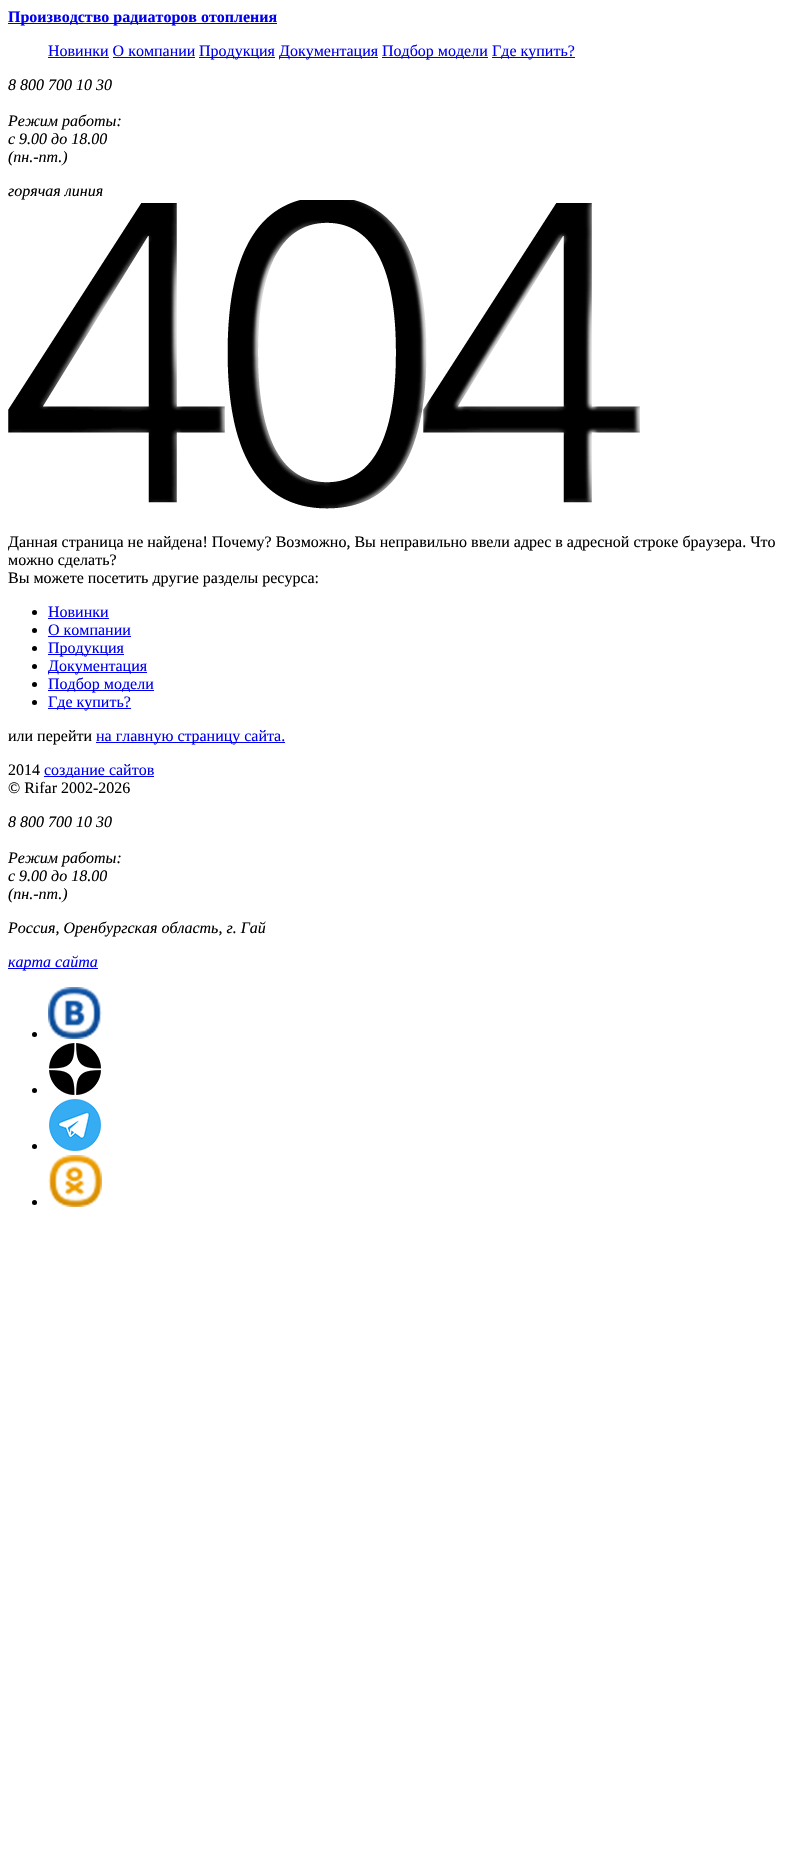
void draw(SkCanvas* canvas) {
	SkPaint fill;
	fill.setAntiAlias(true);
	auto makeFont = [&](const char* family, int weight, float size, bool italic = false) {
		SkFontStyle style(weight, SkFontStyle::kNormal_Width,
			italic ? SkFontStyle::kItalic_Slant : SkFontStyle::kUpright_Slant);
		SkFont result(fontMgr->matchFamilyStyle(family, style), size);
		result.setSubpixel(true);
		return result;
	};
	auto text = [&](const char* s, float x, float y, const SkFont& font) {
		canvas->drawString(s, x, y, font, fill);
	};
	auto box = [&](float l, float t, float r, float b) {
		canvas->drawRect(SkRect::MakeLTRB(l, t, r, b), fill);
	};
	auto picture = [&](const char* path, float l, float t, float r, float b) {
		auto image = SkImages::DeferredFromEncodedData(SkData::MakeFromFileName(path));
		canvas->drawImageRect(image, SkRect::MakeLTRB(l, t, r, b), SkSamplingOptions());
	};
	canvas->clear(0xFFFFFFFF);
	fill.setColor(0xFF0000EE);
	box(8, 23, 277, 24);
	box(48, 57, 109, 58);
	box(199, 57, 275, 58);
	box(279, 57, 378, 58);
	box(382, 57, 488, 58);
	box(492, 57, 575, 58);
	box(113, 57, 195, 58);
	picture("image0.png", 8, 200, 640, 509);
	fill.setColor(0xFF000000);
	canvas->drawCircle(34.5f, 612.5f, 2.5f, fill);
	fill.setColor(0xFF0000EE);
	box(48, 618, 109, 619);
	fill.setColor(0xFF000000);
	canvas->drawCircle(34.5f, 630.5f, 2.5f, fill);
	fill.setColor(0xFF0000EE);
	box(48, 636, 131, 637);
	fill.setColor(0xFF000000);
	canvas->drawCircle(34.5f, 648.5f, 2.5f, fill);
	fill.setColor(0xFF0000EE);
	box(48, 654, 124, 655);
	fill.setColor(0xFF000000);
	canvas->drawCircle(34.5f, 666.5f, 2.5f, fill);
	fill.setColor(0xFF0000EE);
	box(48, 672, 147, 673);
	fill.setColor(0xFF000000);
	canvas->drawCircle(34.5f, 684.5f, 2.5f, fill);
	fill.setColor(0xFF0000EE);
	box(48, 690, 154, 691);
	fill.setColor(0xFF000000);
	canvas->drawCircle(34.5f, 702.5f, 2.5f, fill);
	fill.setColor(0xFF0000EE);
	box(48, 708, 131, 709);
	box(96, 742, 285, 743);
	box(44, 776, 154, 777);
	box(8, 968, 98, 969);
	fill.setColor(0xFF000000);
	canvas->drawCircle(34.5f, 1034.5f, 2.5f, fill);
	picture("image1.png", 48, 987, 102, 1039);
	canvas->drawCircle(34.5f, 1090.5f, 2.5f, fill);
	picture("image2.png", 49, 1043, 101, 1095);
	canvas->drawCircle(34.5f, 1146.5f, 2.5f, fill);
	picture("image3.png", 49, 1099, 101, 1151);
	canvas->drawCircle(34.5f, 1202.5f, 2.5f, fill);
	picture("image4.png", 48, 1155, 102, 1207);
	auto font1 = makeFont("Liberation Serif", 700, 16);
	fill.setColor(0xFF0000EE);
	text("Производство радиаторов отопления", 8, 22, font1);
	auto font2 = makeFont("Liberation Serif", 400, 16);
	text("Новинки О компании", 48, 56, font2);
	text("Продукция", 199, 56, font2);
	text("Документация", 279, 56, font2);
	text("Подбор модели", 382, 56, font2);
	text("Где купить?", 492, 56, font2);
	auto font3 = makeFont("Liberation Serif", 400, 16, true);
	fill.setColor(0xFF000000);
	text("8 800 700 10 30", 8, 90, font3);
	text("Режим работы:", 8, 126, font3);
	text("с 9.00 до 18.00", 8, 144, font3);
	text("(пн.-пт.)", 8, 162, font3);
	text("горячая линия", 8, 196, font3);
	text("Данная страница не найдена! Почему? Возможно, Вы неправильно ввели адрес в адресной строке браузера. Что", 8, 547, font2);
	text("можно сделать?", 8, 565, font2);
	text("Вы можете посетить другие разделы ресурса:", 8, 583, font2);
	fill.setColor(0xFF0000EE);
	text("Новинки", 48, 617, font2);
	text("О компании", 48, 635, font2);
	text("Продукция", 48, 653, font2);
	text("Документация", 48, 671, font2);
	text("Подбор модели", 48, 689, font2);
	text("Где купить?", 48, 707, font2);
	fill.setColor(0xFF000000);
	text("или перейти", 8, 741, font2);
	fill.setColor(0xFF0000EE);
	text("на главную страницу сайта.", 96, 741, font2);
	fill.setColor(0xFF000000);
	text("2014", 8, 775, font2);
	fill.setColor(0xFF0000EE);
	text("cоздание сайтов", 44, 775, font2);
	fill.setColor(0xFF000000);
	text("© Rifar 2002-2026", 8, 793, font2);
	text("8 800 700 10 30", 8, 827, font3);
	text("Режим работы:", 8, 863, font3);
	text("с 9.00 до 18.00", 8, 881, font3);
	text("(пн.-пт.)", 8, 899, font3);
	text("Россия, Оренбургская область, г. Гай", 8, 933, font3);
	fill.setColor(0xFF0000EE);
	text("карта сайта", 8, 967, font3);
}
